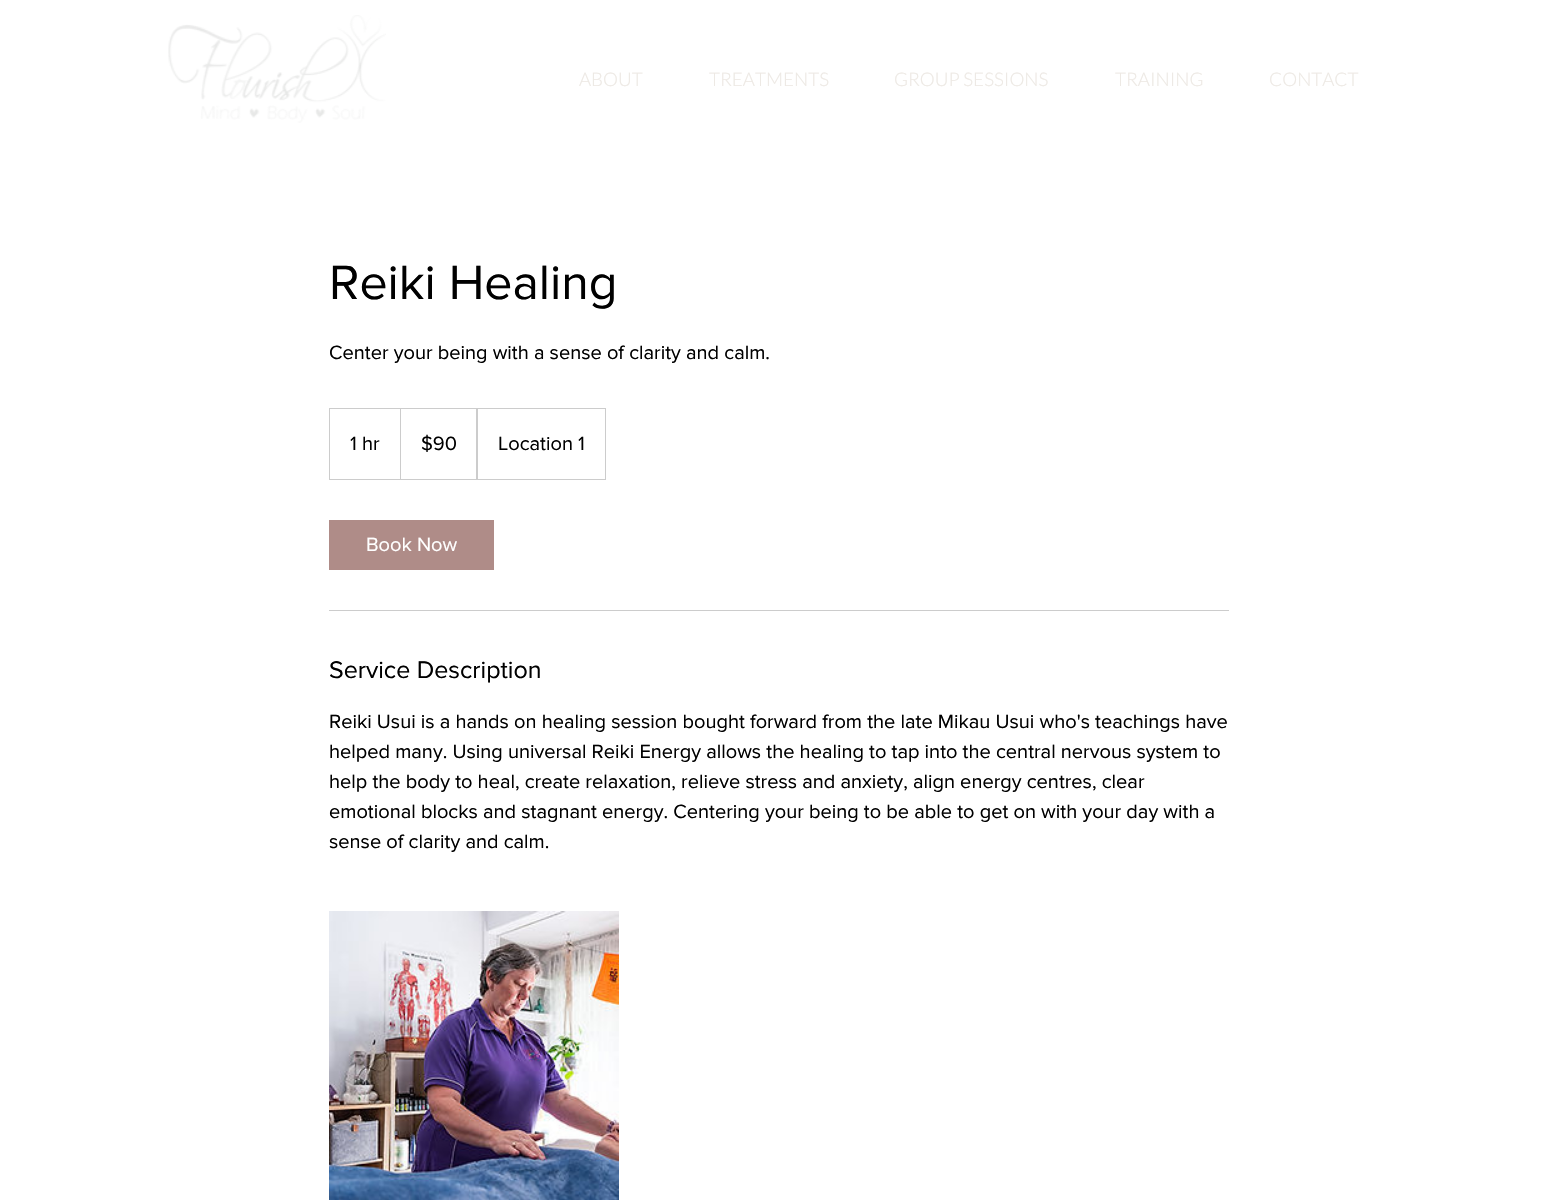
void draw(SkCanvas* canvas) {
	SkPaint fill;
	fill.setAntiAlias(true);
	auto makeFont = [&](const char* family, int weight, float size, bool italic = false) {
		SkFontStyle style(weight, SkFontStyle::kNormal_Width,
			italic ? SkFontStyle::kItalic_Slant : SkFontStyle::kUpright_Slant);
		SkFont result(fontMgr->matchFamilyStyle(family, style), size);
		result.setSubpixel(true);
		return result;
	};
	auto text = [&](const char* s, float x, float y, const SkFont& font) {
		canvas->drawString(s, x, y, font, fill);
	};
	auto box = [&](float l, float t, float r, float b) {
		canvas->drawRect(SkRect::MakeLTRB(l, t, r, b), fill);
	};
	auto picture = [&](const char* path, float l, float t, float r, float b) {
		auto image = SkImages::DeferredFromEncodedData(SkData::MakeFromFileName(path));
		canvas->drawImageRect(image, SkRect::MakeLTRB(l, t, r, b), SkSamplingOptions());
	};
	canvas->clear(0xFFFFFFFF);
	picture("image0.png", 168, 15, 386, 123);
	fill.setStyle(SkPaint::kStroke_Style);
	fill.setStrokeWidth(1);
	fill.setColor(0xFFCCCCCC);
	canvas->drawRect(SkRect::MakeLTRB(329.5f, 408.5f, 605.5f, 479.5f), fill);
	fill.setStyle(SkPaint::kFill_Style);
	canvas->drawPath(SkPathBuilder().moveTo(400, 479).lineTo(400, 408).lineTo(401, 409).lineTo(401, 479).close().detach(), fill);
	canvas->drawPath(SkPathBuilder().moveTo(476, 479).lineTo(476, 408).lineTo(478, 409).lineTo(478, 479).close().detach(), fill);
	fill.setColor(0xFFAF8C88);
	box(329, 520, 494, 570);
	fill.setColor(0xFFCCCCCC);
	box(329, 610, 1229, 611);
	picture("image1.png", 329, 911, 619, 1200);
	auto font1 = makeFont("Lato", 300, 18.75f);
	fill.setColor(0xFFEDE9E4);
	text("ABOUT", 579, 86, font1);
	text("TREATMENTS", 709, 86, font1);
	text("GROUP SESSIONS", 894, 86, font1);
	text("TRAINING", 1115, 86, font1);
	text("CONTACT", 1269, 86, font1);
	auto font2 = makeFont("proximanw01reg", 400, 50);
	fill.setColor(0xFF000000);
	text("Reiki Healing", 329, 299, font2);
	auto font3 = makeFont("proximanw01reg", 400, 20);
	text("Center your being with a sense of clarity and calm.", 329, 359, font3);
	text("1 hr", 350, 450, font3);
	text("$90", 421, 450, font3);
	text("Location 1", 498, 450, font3);
	fill.setColor(0xFFFFFFFF);
	text("Book Now", 366, 551, font3);
	auto font4 = makeFont("proximanw01reg", 400, 25);
	fill.setColor(0xFF000000);
	text("Service Description", 329, 678, font4);
	text("Reiki Usui is a hands on healing session bought forward from the late Mikau Usui who's teachings have", 329, 728, font3);
	text("helped many. Using universal Reiki Energy allows the healing to tap into the central nervous system to", 329, 758, font3);
	text("help the body to heal, create relaxation, relieve stress and anxiety, align energy centres, clear", 329, 788, font3);
	text("emotional blocks and stagnant energy. Centering your being to be able to get on with your day with a", 329, 818, font3);
	text("sense of clarity and calm.", 329, 848, font3);
}
